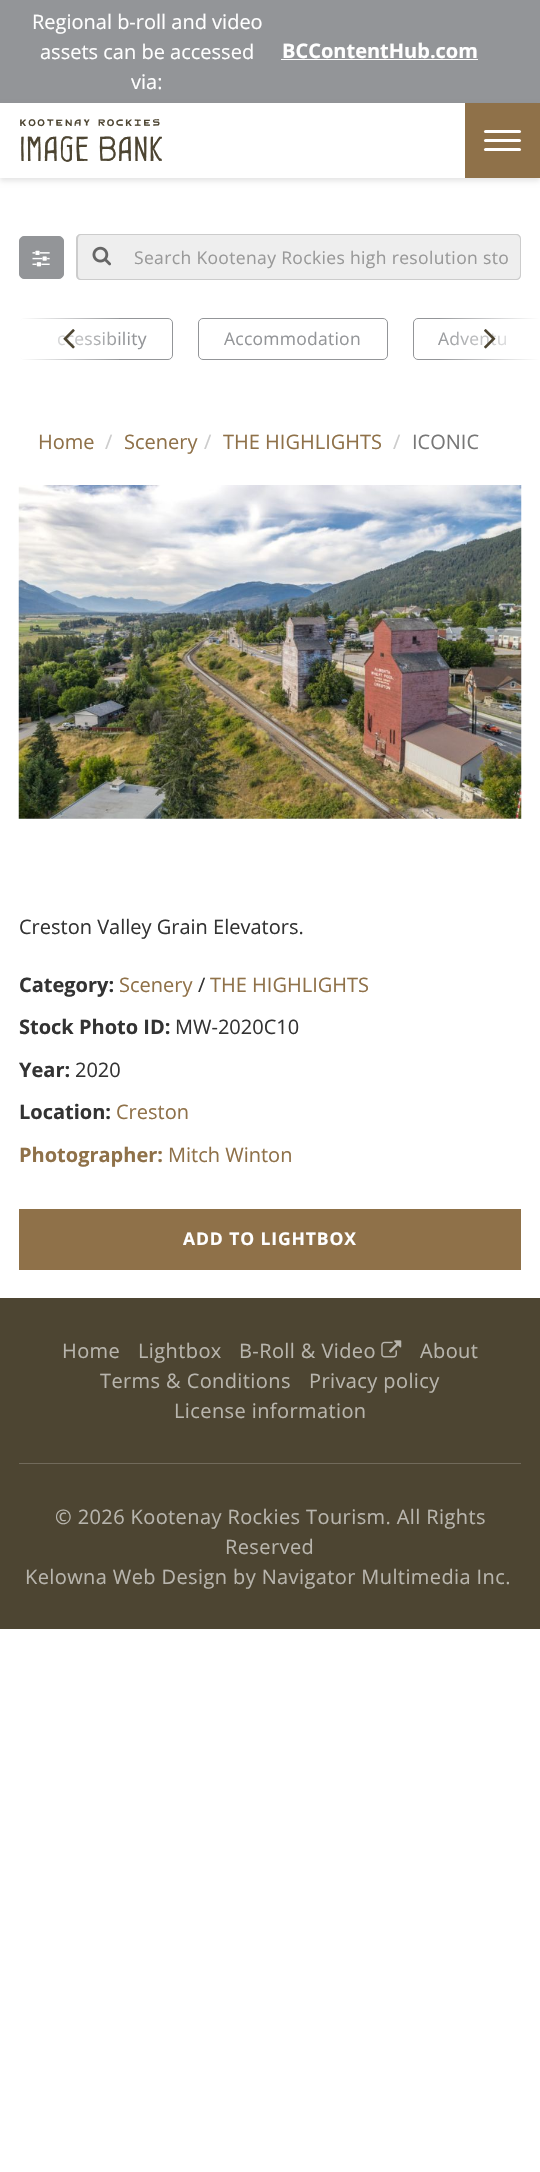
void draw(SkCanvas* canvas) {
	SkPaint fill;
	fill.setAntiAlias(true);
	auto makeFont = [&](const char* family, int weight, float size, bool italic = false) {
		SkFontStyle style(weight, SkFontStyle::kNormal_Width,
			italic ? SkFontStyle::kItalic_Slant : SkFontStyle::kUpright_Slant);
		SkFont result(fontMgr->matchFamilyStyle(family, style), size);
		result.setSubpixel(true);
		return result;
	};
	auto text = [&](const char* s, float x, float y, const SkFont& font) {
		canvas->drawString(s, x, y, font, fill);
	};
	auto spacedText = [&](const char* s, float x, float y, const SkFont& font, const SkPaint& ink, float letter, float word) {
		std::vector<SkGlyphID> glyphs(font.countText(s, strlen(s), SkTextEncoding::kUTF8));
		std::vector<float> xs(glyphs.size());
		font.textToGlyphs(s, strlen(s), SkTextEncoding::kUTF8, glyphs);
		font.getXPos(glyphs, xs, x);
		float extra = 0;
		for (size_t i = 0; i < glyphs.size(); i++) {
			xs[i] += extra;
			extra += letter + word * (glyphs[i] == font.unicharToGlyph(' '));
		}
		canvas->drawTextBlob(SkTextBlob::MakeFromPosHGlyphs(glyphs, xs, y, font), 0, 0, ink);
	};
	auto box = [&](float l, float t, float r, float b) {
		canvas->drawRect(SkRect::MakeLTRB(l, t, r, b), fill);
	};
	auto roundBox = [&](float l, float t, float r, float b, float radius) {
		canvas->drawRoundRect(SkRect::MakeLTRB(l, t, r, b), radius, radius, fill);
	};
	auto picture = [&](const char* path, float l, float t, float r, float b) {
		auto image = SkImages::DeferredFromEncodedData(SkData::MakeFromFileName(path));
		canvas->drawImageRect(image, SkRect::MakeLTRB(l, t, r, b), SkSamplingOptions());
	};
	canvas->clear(0xFFFFFFFF);
	fill.setColor(0xFF939598);
	box(0, 0, 540, 103);
	fill.setColor(0xFFFFFFFF);
	box(281, 59, 478, 60);
	fill.setColor(0x1A000000);
	fill.setMaskFilter(SkMaskFilter::MakeBlur(kNormal_SkBlurStyle, 2.5f));
	canvas->drawRect(SkRect::MakeLTRB(0, 106, 540, 181), fill);
	fill.setMaskFilter(nullptr);
	fill.setColor(0xFFFFFFFF);
	box(0, 103, 465, 178);
	fill.setColor(0xFF8F7149);
	box(465, 103, 540, 178);
	fill.setColor(0xFFFFFFFF);
	roundBox(484, 130, 521, 133, 1.5f);
	roundBox(484, 139, 521, 142, 1.5f);
	roundBox(484, 148, 521, 151, 1.5f);
	fill.setColor(0xFF939598);
	canvas->drawRoundRect(SkRect::MakeLTRB(19.5f, 236.5f, 63.5f, 278.5f), 4.5f, 4.5f, fill);
	fill.setStyle(SkPaint::kStroke_Style);
	fill.setStrokeWidth(1);
	canvas->drawRoundRect(SkRect::MakeLTRB(19.5f, 236.5f, 63.5f, 278.5f), 4.5f, 4.5f, fill);
	picture("image0.png", 32, 250, 50, 267);
	fill.setStyle(SkPaint::kFill_Style);
	fill.setColor(0xFFEEEEEE);
	canvas->drawPath(SkPathBuilder().moveTo(81, 234).lineTo(121, 234).lineTo(121, 280).lineTo(81, 280).cubicTo(78, 280, 76, 278, 76, 275).lineTo(76, 239).cubicTo(76, 236, 78, 234, 81, 234).close().detach(), fill);
	fill.setColor(0xFFCCCCCC);
	canvas->drawPath(SkPathBuilder(SkPathFillType::kEvenOdd).moveTo(81, 234).lineTo(121, 234).lineTo(121, 280).lineTo(81, 280).cubicTo(78, 280, 76, 278, 76, 275).lineTo(76, 239).cubicTo(76, 236, 78, 234, 81, 234).close().moveTo(81, 235).lineTo(121, 235).lineTo(121, 279).lineTo(81, 279).cubicTo(79, 279, 78, 277, 78, 275).lineTo(78, 239).cubicTo(78, 237, 79, 235, 81, 235).close().detach(), fill);
	picture("image1.png", 92, 246, 111, 266);
	fill.setColor(0xFFEEEEEE);
	canvas->drawPath(SkPathBuilder().moveTo(121, 234).lineTo(516, 234).cubicTo(519, 234, 521, 236, 521, 239).lineTo(521, 275).cubicTo(521, 278, 519, 280, 516, 280).lineTo(121, 280).close().detach(), fill);
	fill.setColor(0xFFCCCCCC);
	canvas->drawPath(SkPathBuilder(SkPathFillType::kEvenOdd).moveTo(121, 234).lineTo(516, 234).cubicTo(519, 234, 521, 236, 521, 239).lineTo(521, 275).cubicTo(521, 278, 519, 280, 516, 280).lineTo(121, 280).close().moveTo(121, 235).lineTo(516, 235).cubicTo(518, 235, 520, 237, 520, 239).lineTo(520, 275).cubicTo(520, 277, 518, 279, 516, 279).lineTo(121, 279).close().detach(), fill);
	fill.setStyle(SkPaint::kStroke_Style);
	fill.setColor(0xFF939598);
	canvas->drawRoundRect(SkRect::MakeLTRB(19.5f, 318.5f, 172.5f, 359.5f), 4.5f, 4.5f, fill);
	canvas->drawRoundRect(SkRect::MakeLTRB(198.5f, 318.5f, 387.5f, 359.5f), 4.5f, 4.5f, fill);
	canvas->drawRoundRect(SkRect::MakeLTRB(413.5f, 318.5f, 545.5f, 359.5f), 4.5f, 4.5f, fill);
	picture("image4.png", 18, 485, 522, 819);
	fill.setStyle(SkPaint::kFill_Style);
	fill.setColor(0xFF8F7149);
	box(19, 1209, 521, 1270);
	fill.setColor(0xFF4D4532);
	box(0, 1298, 540, 1629);
	fill.setColor(0xFF716A5B);
	box(19, 1463, 521, 1464);
	picture("image5.png", 381, 1340, 402, 1358);
	auto font1 = makeFont("Open Sans", 400, 20);
	fill.setColor(0xFFFFFFFF);
	text("Regional b-roll and video", 32, 29, font1);
	text("assets can be accessed", 40, 59, font1);
	auto font2 = makeFont("Open Sans", 700, 20);
	text("BCContentHub.com", 282, 58, font2);
	text("via:", 131, 89, font1);
	auto font3 = makeFont("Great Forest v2", 400, 15.6f);
	fill.setColor(0xFF4D4532);
	spacedText("Kootenay Rockies", 19, 130, font3, fill, 0.6f, 0);
	auto font4 = makeFont("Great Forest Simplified", 600, 23.75f);
	text("Image Bank", 19, 161, font4);
	auto font5 = makeFont("Open Sans", 400, 17.5f);
	fill.setColor(0xFF999999);
	spacedText("Search Kootenay Rockies high resolution sto", 134, 264, font5, fill, 0.35f, 0);
	fill.setColor(0xFF939598);
	spacedText("ccessibility", 57, 345, font5, fill, 0.25f, 0);
	{
		const SkColor colors[] = {0x0DFFFFFF, 0xFFFFFFFF};
		const float stops[] = {0, 1};
		const SkPoint ends[] = {{119, 339}, {19, 339}};
		fill.setShader(SkGradientShader::MakeLinear(ends, colors, stops, 2, SkTileMode::kClamp));
		fill.setAlpha(255);
	}
	box(19, 318, 119, 360);
	picture("image2.png", 63, 329, 75, 349);
	fill.setShader(nullptr);
	fill.setColor(0xFF939598);
	spacedText("Accommodation", 224, 345, font5, fill, 0.25f, 0);
	spacedText("Adventu", 438, 345, font5, fill, 0.25f, 0);
	{
		const SkColor colors[] = {0x0DFFFFFF, 0xFFFFFFFF};
		const float stops[] = {0, 1};
		const SkPoint ends[] = {{440, 339}, {540, 339}};
		fill.setShader(SkGradientShader::MakeLinear(ends, colors, stops, 2, SkTileMode::kClamp));
		fill.setAlpha(255);
	}
	box(440, 318, 540, 360);
	picture("image3.png", 484, 329, 496, 349);
	fill.setShader(nullptr);
	fill.setColor(0xFF8F7149);
	text("Home", 38, 449, font1);
	fill.setColor(0xFFCCCCCC);
	text("/", 105, 449, font1);
	fill.setColor(0xFF8F7149);
	text("Scenery", 124, 449, font1);
	fill.setColor(0xFFCCCCCC);
	text("/", 204, 449, font1);
	fill.setColor(0xFF8F7149);
	text("THE HIGHLIGHTS", 223, 449, font1);
	fill.setColor(0xFFCCCCCC);
	text("/", 393, 449, font1);
	fill.setColor(0xFF777777);
	text("ICONIC", 412, 449, font1);
	fill.setColor(0xFF333333);
	text("Creston Valley Grain Elevators.", 19, 934, font1);
	text("Category:", 19, 992, font2);
	fill.setColor(0xFF8F7149);
	text("Scenery", 119, 992, font1);
	fill.setColor(0xFF333333);
	text("/", 198, 992, font1);
	fill.setColor(0xFF8F7149);
	text("THE HIGHLIGHTS", 210, 992, font1);
	fill.setColor(0xFF333333);
	text("Stock Photo ID:", 19, 1034, font2);
	text("MW-2020C10", 175, 1034, font1);
	text("Year:", 19, 1077, font2);
	text("2020", 75, 1077, font1);
	text("Location:", 19, 1119, font2);
	fill.setColor(0xFF8F7149);
	text("Creston", 116, 1119, font1);
	text("Photographer:", 19, 1162, font2);
	text("Mitch Winton", 168, 1162, font1);
	auto font6 = makeFont("Open Sans", 700, 17.5f);
	fill.setColor(0xFFFFFFFF);
	spacedText("ADD TO LIGHTBOX", 183, 1245, font6, fill, 0.9f, 0);
	fill.setColor(0xFFB8B5AD);
	spacedText("Home", 62, 1358, font1, fill, 0.4f, 0);
	spacedText("Lightbox", 138, 1358, font1, fill, 0.4f, 0);
	spacedText("B-Roll & Video", 239, 1358, font1, fill, 0.4f, 0);
	spacedText("About", 420, 1358, font1, fill, 0.4f, 0);
	spacedText("Terms & Conditions", 100, 1388, font1, fill, 0.4f, 0);
	spacedText("Privacy policy", 309, 1388, font1, fill, 0.4f, 0);
	spacedText("License information", 174, 1418, font1, fill, 0.4f, 0);
	spacedText("© 2026 Kootenay Rockies Tourism. All Rights", 55, 1524, font1, fill, 0.4f, 0);
	spacedText("Reserved", 225, 1554, font1, fill, 0.4f, 0);
	spacedText("Kelowna Web Design by Navigator Multimedia Inc.", 25, 1584, font1, fill, 0.4f, 0);
}
